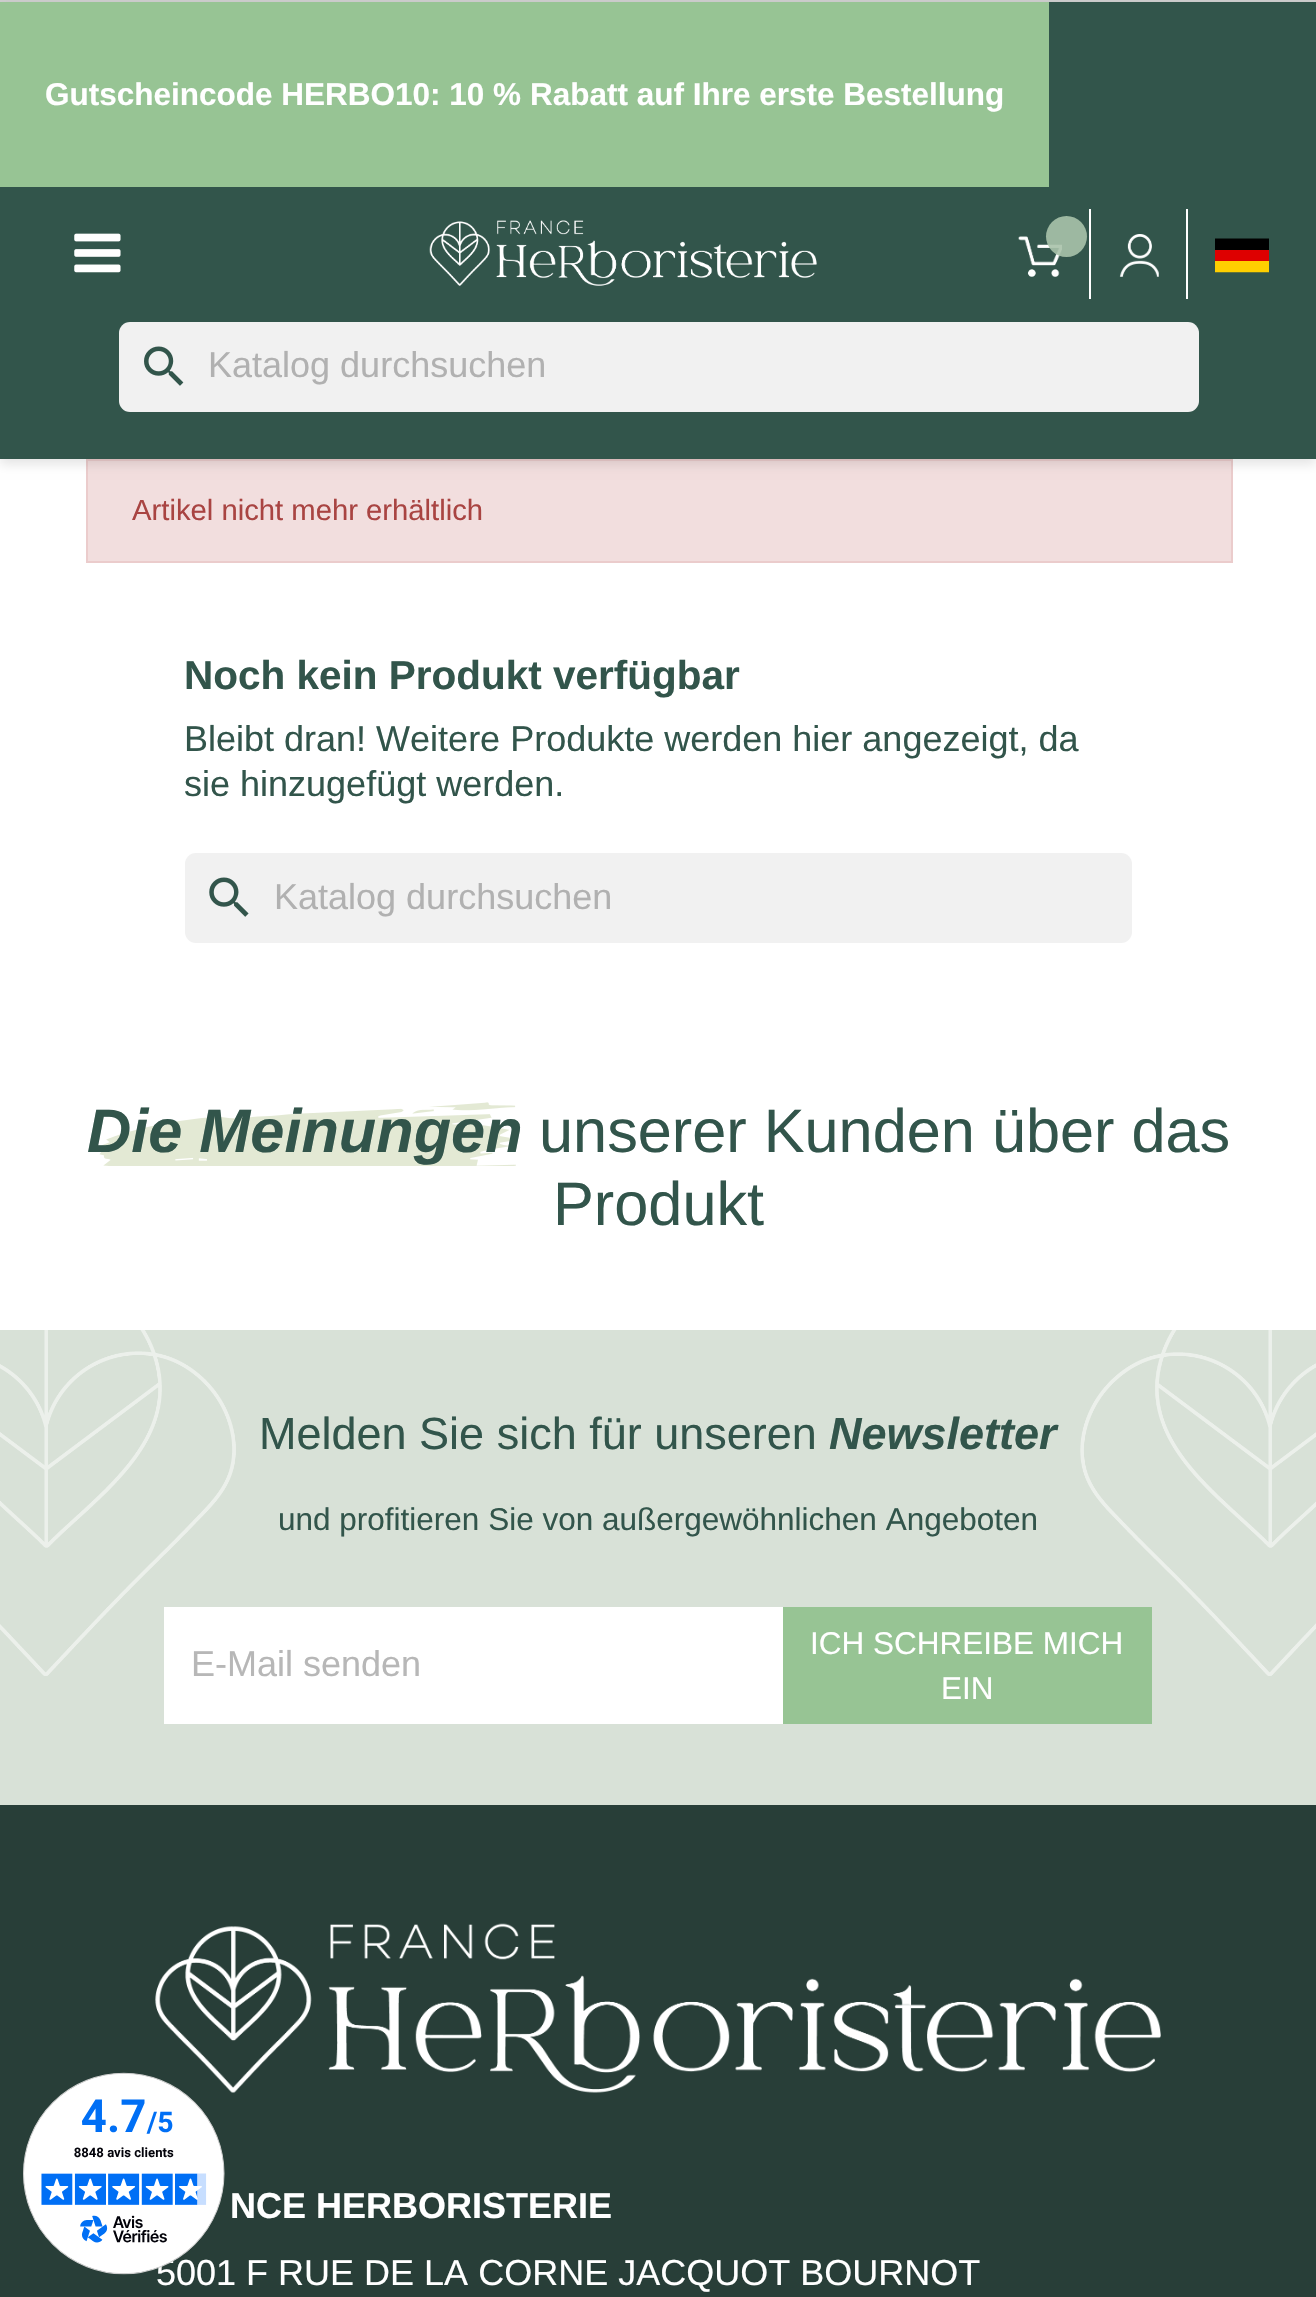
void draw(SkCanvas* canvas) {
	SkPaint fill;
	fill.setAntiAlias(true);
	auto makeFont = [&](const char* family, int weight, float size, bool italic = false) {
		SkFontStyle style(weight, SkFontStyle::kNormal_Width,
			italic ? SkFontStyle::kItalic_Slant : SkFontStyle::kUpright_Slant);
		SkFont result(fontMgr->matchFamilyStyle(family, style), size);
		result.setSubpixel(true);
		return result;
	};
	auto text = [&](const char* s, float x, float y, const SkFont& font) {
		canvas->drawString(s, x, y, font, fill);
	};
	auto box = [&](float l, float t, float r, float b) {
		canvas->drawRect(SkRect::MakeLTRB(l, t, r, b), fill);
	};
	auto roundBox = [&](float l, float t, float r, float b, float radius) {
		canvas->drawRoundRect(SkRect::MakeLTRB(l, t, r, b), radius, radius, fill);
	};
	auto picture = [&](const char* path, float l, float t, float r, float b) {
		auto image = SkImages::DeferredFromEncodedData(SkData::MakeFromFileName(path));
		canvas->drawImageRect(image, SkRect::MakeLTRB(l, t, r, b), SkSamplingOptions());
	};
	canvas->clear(0xFFFFFFFF);
	fill.setColor(0xFFCECECE);
	box(0, 0, 1316, 2);
	fill.setColor(0xFFF2DEDE);
	canvas->drawRect(SkRect::MakeLTRB(87, 460, 1232, 562), fill);
	fill.setStyle(SkPaint::kStroke_Style);
	fill.setStrokeWidth(2);
	fill.setColor(0xFFEBCCCC);
	canvas->drawRect(SkRect::MakeLTRB(87, 460, 1232, 562), fill);
	fill.setStyle(SkPaint::kFill_Style);
	fill.setColor(0x1C000000);
	fill.setMaskFilter(SkMaskFilter::MakeBlur(kNormal_SkBlurStyle, 5.5f));
	canvas->drawRect(SkRect::MakeLTRB(0, 7, 1316, 464), fill);
	fill.setMaskFilter(nullptr);
	fill.setColor(0xFF97C494);
	box(0, 2, 1049, 187);
	fill.setColor(0xFF32554B);
	box(1049, 2, 1316, 187);
	box(0, 187, 1316, 459);
	picture("image0.png", 74, 233, 121, 273);
	picture("image1.png", 429, 220, 817, 286);
	picture("image2.png", 1018, 236, 1062, 277);
	fill.setColor(0xE6A9C2AA);
	canvas->drawCircle(1066.5f, 236.5f, 20.5f, fill);
	fill.setColor(0xFFFFFFFF);
	box(1089, 209, 1091, 299);
	picture("image3.png", 1119, 234, 1159, 277);
	box(1186, 209, 1188, 299);
	picture("image4.png", 1215, 238, 1269, 273);
	fill.setColor(0xFFF1F1F1);
	roundBox(119, 322, 1199, 412, 11);
	picture("image5.png", 144, 346, 184, 386);
	roundBox(185, 853, 1132, 943, 11);
	picture("image6.png", 209, 877, 249, 917);
	picture("image7.png", 99, 1102, 517, 1166);
	fill.setColor(0xFFD8E1D7);
	box(0, 1330, 1316, 1805);
	picture("image8.png", 0, 1330, 236, 1676);
	fill.setColor(0xFFFFFFFF);
	box(164, 1607, 783, 1724);
	fill.setColor(0xFF97C494);
	box(783, 1607, 1152, 1724);
	fill.setColor(0xFF283E38);
	box(0, 1805, 1316, 2297);
	picture("image10.png", 155, 1923, 1161, 2093);
	auto font1 = makeFont("Liberation Sans", 700, 31.5f);
	fill.setColor(0xFFFFFFFF);
	text("Gutscheincode HERBO10: 10 % Rabatt auf Ihre erste Bestellung", 45, 105, font1);
	auto font2 = makeFont("Liberation Sans", 400, 36);
	fill.setColor(0xFFB1B1B1);
	text("Katalog durchsuchen", 208, 377, font2);
	auto font3 = makeFont("Liberation Sans", 400, 29.25f);
	fill.setColor(0xFFA94442);
	text("Artikel nicht mehr erhältlich", 132, 520, font3);
	auto font4 = makeFont("Liberation Sans", 700, 40.5f);
	fill.setColor(0xFF32554B);
	text("Noch kein Produkt verfügbar", 184, 689, font4);
	text("Bleibt dran! Weitere Produkte werden hier angezeigt, da", 184, 751, font2);
	text("sie hinzugefügt werden.", 184, 796, font2);
	fill.setColor(0xFFB1B1B1);
	text("Katalog durchsuchen", 274, 909, font2);
	auto font5 = makeFont("Liberation Sans", 700, 61.25f, true);
	fill.setColor(0xFF32554B);
	text("Die Meinungen", 87, 1152, font5);
	auto font6 = makeFont("Liberation Sans", 400, 61.25f);
	text("unserer Kunden über das", 539, 1152, font6);
	text("Produkt", 553, 1225, font6);
	auto font7 = makeFont("Liberation Sans", 400, 45);
	text("Melden Sie sich für unseren", 259, 1449, font7);
	auto font8 = makeFont("Liberation Sans", 700, 45, true);
	text("Newsletter", 829, 1449, font8);
	auto font9 = makeFont("Liberation Sans", 400, 31.5f);
	text("und profitieren Sie von außergewöhnlichen Angeboten", 278, 1530, font9);
	fill.setColor(0xFFB7B7B7);
	text("E-Mail senden", 191, 1676, font2);
	fill.setColor(0xFFFFFFFF);
	text("ICH SCHREIBE MICH", 810, 1654, font9);
	picture("image9.png", 1080, 1330, 1316, 1676);
	text("EIN", 941, 1699, font9);
	auto font10 = makeFont("Liberation Sans", 700, 36);
	text("NCE HERBORISTERIE", 230, 2218, font10);
	text("5001 F RUE DE LA CORNE JACQUOT BOURNOT", 156, 2285, font2);
	picture("image11.png", 23, 2072, 225, 2275);
}
